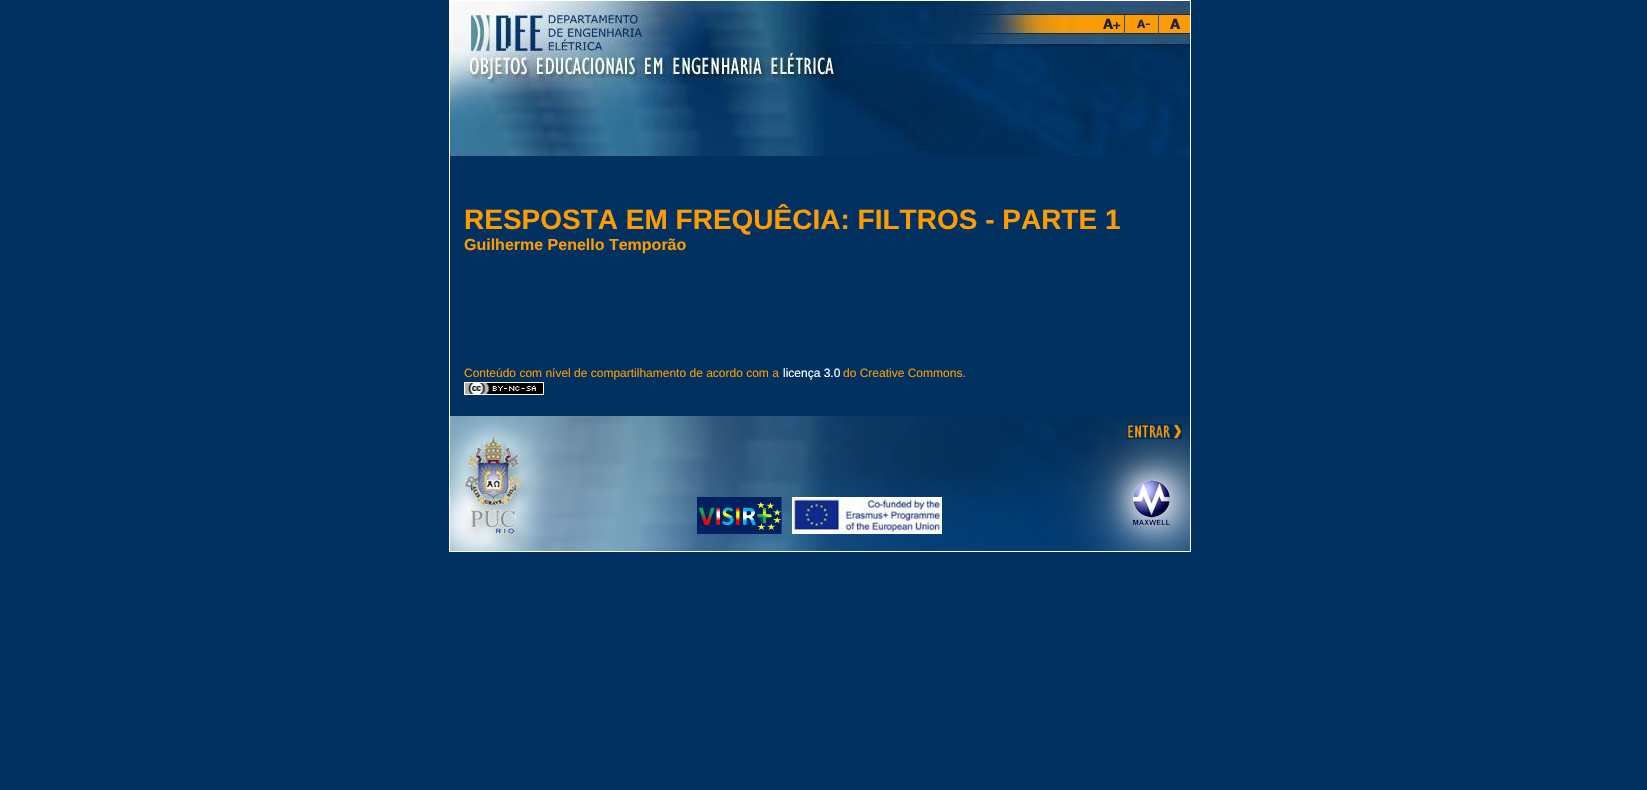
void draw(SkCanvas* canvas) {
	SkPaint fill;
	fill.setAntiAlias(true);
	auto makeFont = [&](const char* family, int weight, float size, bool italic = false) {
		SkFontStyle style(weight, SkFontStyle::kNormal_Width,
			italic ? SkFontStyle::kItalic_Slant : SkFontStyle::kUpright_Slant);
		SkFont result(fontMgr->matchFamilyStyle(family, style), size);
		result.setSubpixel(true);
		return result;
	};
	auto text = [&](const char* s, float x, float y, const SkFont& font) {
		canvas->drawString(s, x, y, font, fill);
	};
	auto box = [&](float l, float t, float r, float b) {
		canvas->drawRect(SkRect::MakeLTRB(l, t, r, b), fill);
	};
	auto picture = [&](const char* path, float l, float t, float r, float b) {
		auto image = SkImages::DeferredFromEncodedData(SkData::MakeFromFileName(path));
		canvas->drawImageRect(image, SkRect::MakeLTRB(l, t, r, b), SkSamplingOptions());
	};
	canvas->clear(0xFF003160);
	fill.setColor(0xFFFFFFFF);
	box(449, 0, 1191, 552);
	picture("image0.png", 450, 1, 1190, 156);
	picture("image1.png", 1097, 15, 1125, 34);
	picture("image2.png", 1129, 15, 1157, 34);
	picture("image3.png", 1162, 15, 1189, 34);
	fill.setColor(0xFF003160);
	box(450, 156, 1190, 416);
	picture("image4.png", 464, 382, 544, 395);
	picture("image5.png", 450, 416, 1190, 551);
	picture("image6.png", 1127, 424, 1182, 439);
	picture("image7.png", 697, 497, 782, 534);
	picture("image8.png", 792, 497, 942, 534);
	auto font1 = makeFont("Liberation Sans", 700, 28);
	fill.setColor(0xFFFC9B03);
	text("RESPOSTA EM FREQUÊCIA: FILTROS - PARTE 1", 464, 229, font1);
	auto font2 = makeFont("Liberation Sans", 700, 16);
	text("Guilherme Penello Temporão", 464, 250, font2);
	auto font3 = makeFont("Liberation Sans", 400, 12);
	text("Conteúdo com nível de compartilhamento de acordo com a", 464, 377, font3);
	fill.setColor(0xFFFFFFFF);
	text("licença 3.0", 783, 377, font3);
	fill.setColor(0xFFFC9B03);
	text("do Creative Commons.", 843, 377, font3);
}
